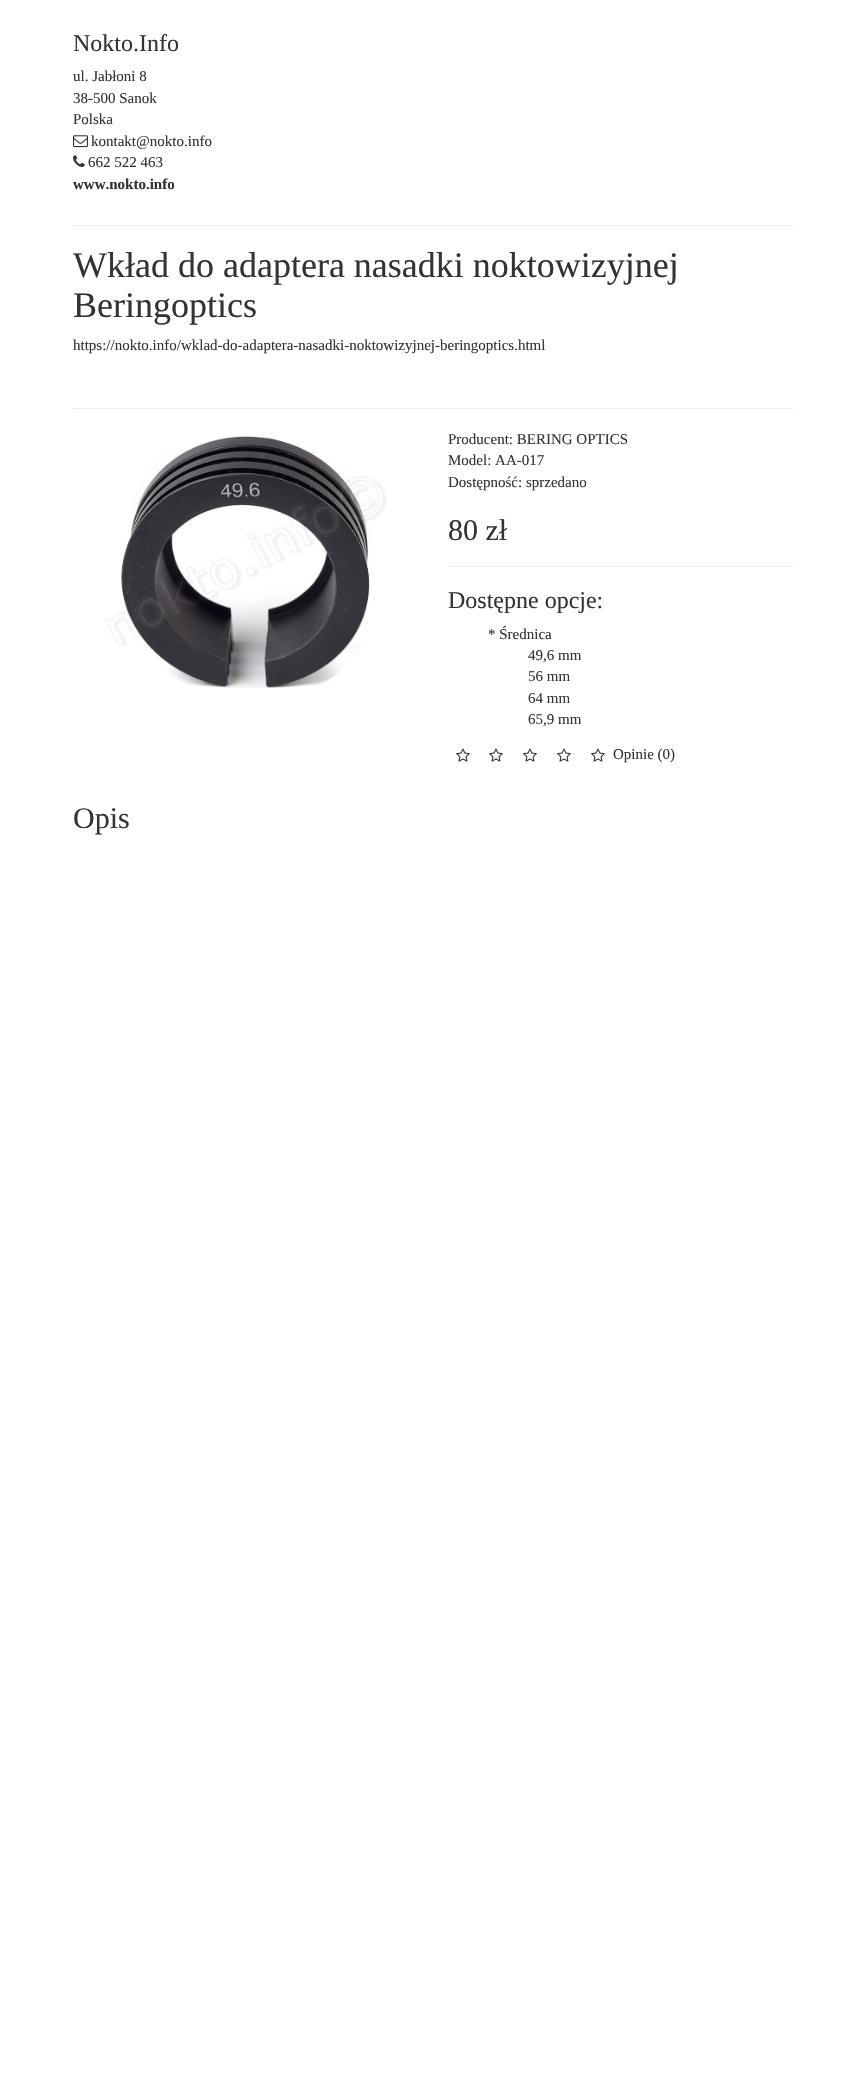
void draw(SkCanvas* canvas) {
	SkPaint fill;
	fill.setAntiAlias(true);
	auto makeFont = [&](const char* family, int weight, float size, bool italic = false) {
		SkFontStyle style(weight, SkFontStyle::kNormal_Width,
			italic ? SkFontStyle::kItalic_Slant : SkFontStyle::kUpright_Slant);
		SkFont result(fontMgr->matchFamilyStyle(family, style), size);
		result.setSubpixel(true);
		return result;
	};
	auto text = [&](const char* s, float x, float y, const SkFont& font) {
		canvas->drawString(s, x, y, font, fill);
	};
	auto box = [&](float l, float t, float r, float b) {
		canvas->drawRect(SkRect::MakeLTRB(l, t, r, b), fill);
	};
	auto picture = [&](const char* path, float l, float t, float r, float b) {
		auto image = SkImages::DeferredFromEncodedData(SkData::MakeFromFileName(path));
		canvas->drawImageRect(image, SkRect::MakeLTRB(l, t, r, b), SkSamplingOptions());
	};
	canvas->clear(0xFFFFFFFF);
	picture("image0.png", 73, 135, 88, 148);
	picture("image1.png", 73, 155, 85, 167);
	fill.setColor(0xFFEEEEEE);
	box(73, 225, 793, 226);
	box(73, 408, 793, 409);
	picture("image2.png", 106, 436, 387, 688);
	box(448, 566, 793, 567);
	picture("image3.png", 456, 748, 470, 762);
	picture("image3.png", 489, 748, 503, 762);
	picture("image3.png", 523, 748, 537, 762);
	picture("image3.png", 557, 748, 571, 762);
	picture("image3.png", 591, 748, 605, 762);
	auto font1 = makeFont("Liberation Serif", 400, 24);
	fill.setColor(0xFF333333);
	text("Nokto.Info", 73, 51, font1);
	auto font2 = makeFont("Liberation Serif", 400, 15);
	text("ul. Jabłoni 8", 73, 81, font2);
	text("38-500 Sanok", 73, 103, font2);
	text("Polska", 73, 124, font2);
	text("kontakt@nokto.info", 91, 146, font2);
	text("662 522 463", 88, 167, font2);
	auto font3 = makeFont("Liberation Serif", 700, 15);
	text("www.nokto.info", 73, 189, font3);
	auto font4 = makeFont("Liberation Serif", 400, 36);
	text("Wkład do adaptera nasadki noktowizyjnej", 73, 277, font4);
	text("Beringoptics", 73, 317, font4);
	text("https://nokto.info/wklad-do-adaptera-nasadki-noktowizyjnej-beringoptics.html", 73, 350, font2);
	text("Producent: BERING OPTICS", 448, 444, font2);
	text("Model: AA-017", 448, 465, font2);
	text("Dostępność: sprzedano", 448, 487, font2);
	auto font5 = makeFont("Liberation Serif", 400, 30);
	text("80 zł", 448, 540, font5);
	text("Dostępne opcje:", 448, 608, font1);
	text("* Średnica", 488, 639, font2);
	text("49,6 mm", 528, 660, font2);
	text("56 mm", 528, 681, font2);
	text("64 mm", 528, 703, font2);
	text("65,9 mm", 528, 724, font2);
	text("Opinie (0)", 613, 759, font2);
	text("Opis", 73, 828, font5);
}
